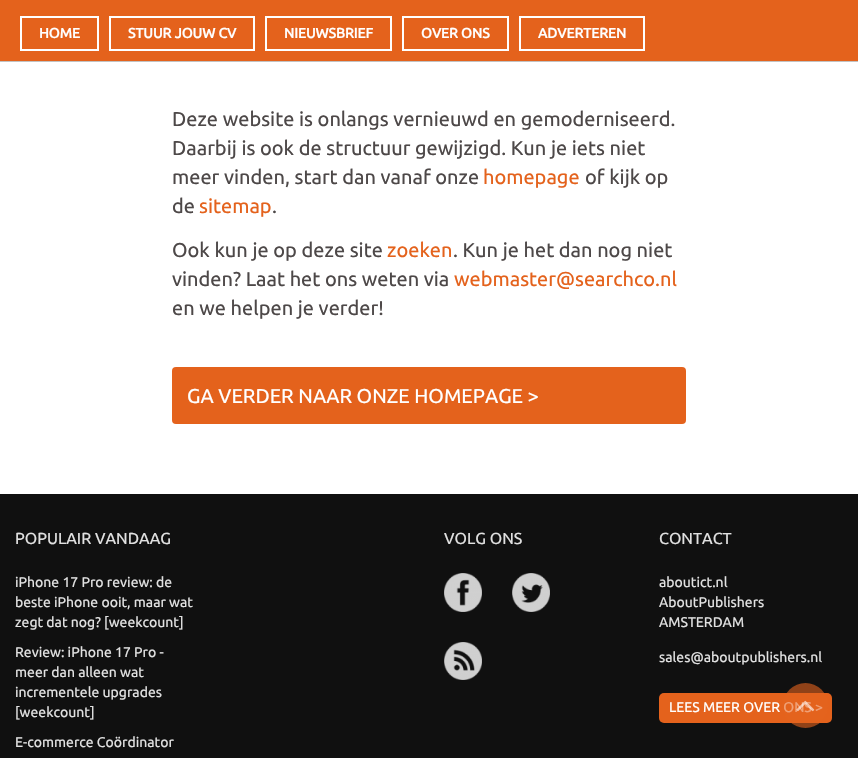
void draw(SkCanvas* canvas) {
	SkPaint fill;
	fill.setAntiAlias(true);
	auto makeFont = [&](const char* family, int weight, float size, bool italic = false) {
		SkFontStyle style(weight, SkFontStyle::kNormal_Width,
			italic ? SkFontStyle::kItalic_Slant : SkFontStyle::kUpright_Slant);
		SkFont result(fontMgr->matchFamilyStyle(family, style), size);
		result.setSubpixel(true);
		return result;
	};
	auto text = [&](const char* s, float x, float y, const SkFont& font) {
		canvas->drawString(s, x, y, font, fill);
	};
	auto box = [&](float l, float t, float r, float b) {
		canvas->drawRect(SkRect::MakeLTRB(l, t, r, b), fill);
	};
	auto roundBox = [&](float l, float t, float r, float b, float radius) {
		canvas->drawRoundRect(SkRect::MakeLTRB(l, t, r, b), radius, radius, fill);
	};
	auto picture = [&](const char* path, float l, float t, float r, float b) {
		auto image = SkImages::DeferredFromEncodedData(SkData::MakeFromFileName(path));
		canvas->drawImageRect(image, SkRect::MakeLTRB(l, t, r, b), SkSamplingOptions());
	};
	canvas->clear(0xFFFFFFFF);
	fill.setColor(0xFFE4621C);
	box(0, 0, 858, 61);
	fill.setColor(0xFFC2C2C2);
	box(0, 61, 858, 62);
	fill.setStyle(SkPaint::kStroke_Style);
	fill.setStrokeWidth(2);
	fill.setColor(0xFFFFFFFF);
	canvas->drawRect(SkRect::MakeLTRB(21, 17, 98, 50), fill);
	canvas->drawRect(SkRect::MakeLTRB(110, 17, 254, 50), fill);
	canvas->drawRect(SkRect::MakeLTRB(266, 17, 391, 50), fill);
	canvas->drawRect(SkRect::MakeLTRB(403, 17, 508, 50), fill);
	canvas->drawRect(SkRect::MakeLTRB(520, 17, 644, 50), fill);
	fill.setStyle(SkPaint::kFill_Style);
	fill.setColor(0xFFE4621C);
	roundBox(172, 367, 686, 424, 4);
	fill.setColor(0xFF101010);
	box(0, 494, 858, 758);
	picture("image0.png", 444, 573, 482, 612);
	picture("image1.png", 512, 573, 550, 612);
	picture("image2.png", 444, 642, 482, 680);
	fill.setColor(0xFFE4621C);
	roundBox(659, 693, 832, 723, 5);
	auto font1 = makeFont("Ubuntu", 700, 14);
	fill.setColor(0xFFFFFFFF);
	text("HOME", 39, 38, font1);
	text("STUUR JOUW CV", 128, 38, font1);
	text("NIEUWSBRIEF", 284, 38, font1);
	text("OVER ONS", 421, 38, font1);
	text("ADVERTEREN", 538, 38, font1);
	auto font2 = makeFont("Ubuntu", 400, 20);
	fill.setColor(0xFF4D4848);
	text("Deze website is onlangs vernieuwd en gemoderniseerd.", 172, 126, font2);
	text("Daarbij is ook de structuur gewijzigd. Kun je iets niet", 172, 155, font2);
	text("meer vinden, start dan vanaf onze", 172, 184, font2);
	fill.setColor(0xFFE4621C);
	text("homepage", 483, 184, font2);
	fill.setColor(0xFF4D4848);
	text("of kijk op", 585, 184, font2);
	text("de", 172, 213, font2);
	fill.setColor(0xFFE4621C);
	text("sitemap", 199, 213, font2);
	fill.setColor(0xFF4D4848);
	text(".", 272, 213, font2);
	text("Ook kun je op deze site", 172, 257, font2);
	fill.setColor(0xFFE4621C);
	text("zoeken", 387, 257, font2);
	fill.setColor(0xFF4D4848);
	text(". Kun je het dan nog niet", 453, 257, font2);
	text("vinden? Laat het ons weten via", 172, 286, font2);
	fill.setColor(0xFFE4621C);
	text("webmaster@searchco.nl", 454, 286, font2);
	fill.setColor(0xFF4D4848);
	text("en we helpen je verder!", 172, 315, font2);
	fill.setColor(0xFFFFFFFF);
	text("GA VERDER NAAR ONZE HOMEPAGE >", 187, 403, font2);
	auto font3 = makeFont("Ubuntu", 400, 16);
	fill.setColor(0xFFE1E1E1);
	text("POPULAIR VANDAAG", 15, 544, font3);
	auto font4 = makeFont("Ubuntu", 400, 14);
	text("iPhone 17 Pro review: de", 15, 587, font4);
	text("beste iPhone ooit, maar wat", 15, 607, font4);
	text("zegt dat nog? [weekcount]", 15, 627, font4);
	text("Review: iPhone 17 Pro -", 15, 657, font4);
	text("meer dan alleen wat", 15, 677, font4);
	text("incrementele upgrades", 15, 697, font4);
	text("[weekcount]", 15, 717, font4);
	text("E-commerce Coördinator", 15, 747, font4);
	text("VOLG ONS", 444, 544, font3);
	text("CONTACT", 659, 544, font3);
	text("aboutict.nl", 659, 587, font4);
	text("AboutPublishers", 659, 607, font4);
	text("AMSTERDAM", 659, 627, font4);
	text("sales@aboutpublishers.nl", 659, 662, font4);
	fill.setColor(0xFFFFFFFF);
	text("LEES MEER OVER ONS >", 669, 712, font4);
	fill.setColor(0x99E4621C);
	canvas->drawCircle(805.5f, 705.5f, 22.5f, fill);
	picture("image3.png", 796, 700, 815, 712);
}
